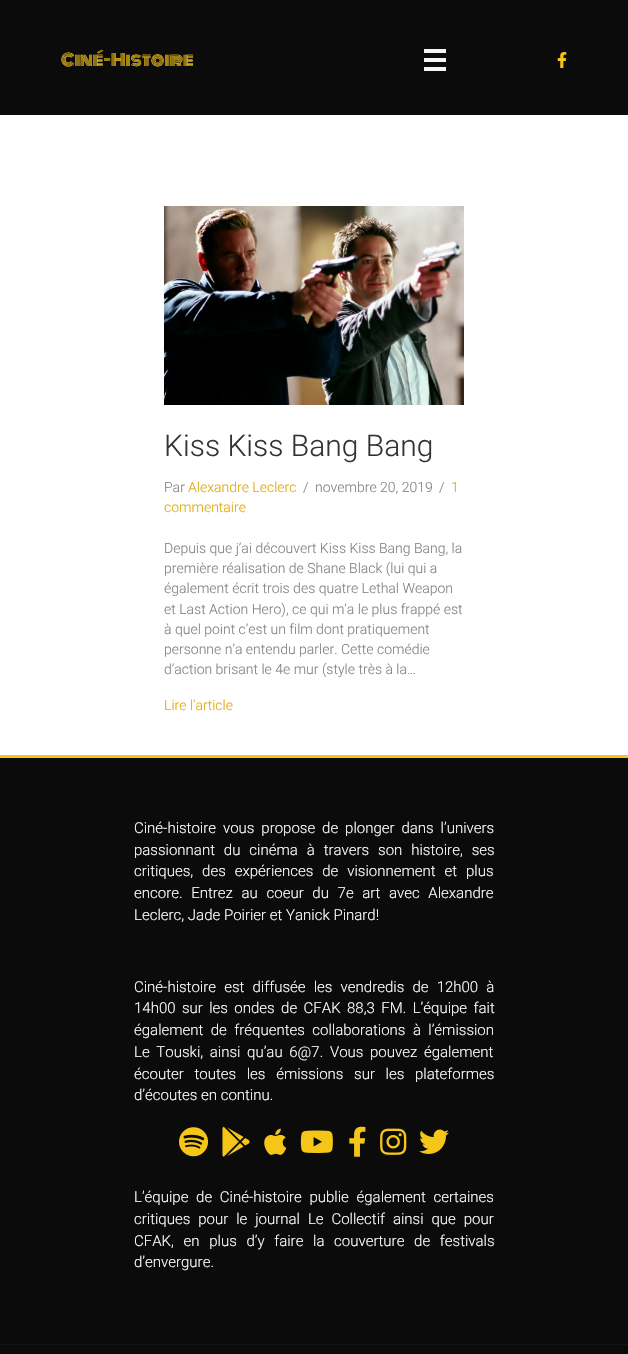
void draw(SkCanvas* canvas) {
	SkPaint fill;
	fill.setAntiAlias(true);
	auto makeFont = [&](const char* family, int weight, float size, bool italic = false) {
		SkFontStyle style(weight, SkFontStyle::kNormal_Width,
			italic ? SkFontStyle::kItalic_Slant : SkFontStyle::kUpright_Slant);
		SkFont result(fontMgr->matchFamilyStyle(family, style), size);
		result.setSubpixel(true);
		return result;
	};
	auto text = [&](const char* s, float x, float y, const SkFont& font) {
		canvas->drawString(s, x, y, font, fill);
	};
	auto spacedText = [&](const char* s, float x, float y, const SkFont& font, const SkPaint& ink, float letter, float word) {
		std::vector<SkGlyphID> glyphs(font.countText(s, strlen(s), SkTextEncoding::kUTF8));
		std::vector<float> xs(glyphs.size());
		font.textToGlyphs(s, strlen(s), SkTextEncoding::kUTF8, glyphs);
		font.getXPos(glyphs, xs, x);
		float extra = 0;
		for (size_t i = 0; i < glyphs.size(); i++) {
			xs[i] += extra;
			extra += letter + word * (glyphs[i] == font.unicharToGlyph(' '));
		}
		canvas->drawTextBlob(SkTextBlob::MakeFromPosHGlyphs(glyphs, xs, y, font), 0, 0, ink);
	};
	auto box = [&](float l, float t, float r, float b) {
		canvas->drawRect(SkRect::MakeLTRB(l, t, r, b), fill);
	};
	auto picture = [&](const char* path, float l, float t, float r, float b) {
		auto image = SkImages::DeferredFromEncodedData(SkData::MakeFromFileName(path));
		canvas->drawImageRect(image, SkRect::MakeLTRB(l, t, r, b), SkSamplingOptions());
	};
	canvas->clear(0xFFFFFFFF);
	fill.setColor(0xFF0B0B0B);
	box(0, 0, 628, 115);
	fill.setColor(0xFFF5F5F5);
	box(424, 49, 446, 53);
	box(424, 58, 446, 62);
	box(424, 67, 446, 71);
	picture("image0.png", 557, 52, 567, 68);
	picture("image1.png", 164, 206, 464, 405);
	fill.setColor(0xFF0B0B0B);
	box(0, 758, 628, 1344);
	fill.setColor(0xFFF5C518);
	box(0, 755, 628, 758);
	picture("image2.png", 179, 1127, 209, 1157);
	picture("image3.png", 222, 1126, 250, 1157);
	picture("image4.png", 264, 1128, 287, 1155);
	picture("image5.png", 300, 1130, 333, 1153);
	picture("image6.png", 349, 1126, 366, 1157);
	picture("image7.png", 380, 1128, 407, 1155);
	picture("image8.png", 419, 1129, 449, 1154);
	fill.setColor(0xFF0B0B0B);
	box(0, 1345, 628, 1354);
	fill.setColor(0xFF141414);
	box(0, 1344, 628, 1345);
	auto font1 = makeFont("Monoton", 400, 16);
	fill.setColor(0xFFF5C518);
	text("Ciné-Histoire", 61, 66, font1);
	auto font2 = makeFont("Roboto", 300, 30);
	fill.setColor(0xFF333333);
	text("Kiss Kiss Bang Bang", 164, 456, font2);
	auto font3 = makeFont("Roboto", 300, 14);
	fill.setColor(0xFF808080);
	text("Par", 164, 492, font3);
	fill.setColor(0xFFE0A802);
	text("Alexandre Leclerc", 188, 492, font3);
	fill.setColor(0xFF808080);
	text("/", 303, 492, font3);
	text("novembre 20, 2019", 315, 492, font3);
	text("/", 439, 492, font3);
	fill.setColor(0xFFE0A802);
	text("1", 451, 492, font3);
	text("commentaire", 164, 512, font3);
	fill.setColor(0xFF808080);
	text("Depuis que j’ai découvert Kiss Kiss Bang Bang, la", 164, 553, font3);
	text("première réalisation de Shane Black (lui qui a", 164, 573, font3);
	text("également écrit trois des quatre Lethal Weapon", 164, 593, font3);
	text("et Last Action Hero), ce qui m’a le plus frappé est", 164, 614, font3);
	text("à quel point c’est un film dont pratiquement", 164, 634, font3);
	text("personne n’a entendu parler. Cette comédie", 164, 654, font3);
	text("d’action brisant le 4e mur (style très à la…", 164, 674, font3);
	fill.setColor(0xFFE0A802);
	text("Lire l'article", 164, 710, font3);
	auto font4 = makeFont("Roboto", 300, 15);
	fill.setColor(0xFFFFFFFF);
	spacedText("Ciné-histoire vous propose de plonger dans l’univers", 134, 833, font4, fill, 0, 3.25f);
	spacedText("passionnant du cinéma à travers son histoire, ses", 134, 855, font4, fill, 0, 5.25f);
	spacedText("critiques, des expériences de visionnement et plus", 134, 876, font4, fill, 0, 5.25f);
	spacedText("encore. Entrez au coeur du 7e art avec Alexandre", 134, 898, font4, fill, 0, 5);
	text("Leclerc, Jade Poirier et Yanick Pinard!", 134, 920, font4);
	spacedText("Ciné-histoire est diffusée les vendredis de 12h00 à", 134, 992, font4, fill, 0, 4.5f);
	spacedText("14h00 sur les ondes de CFAK 88,3 FM. L’équipe fait", 134, 1013, font4, fill, 0, 2.75f);
	spacedText("également de fréquentes collaborations à l’émission", 134, 1035, font4, fill, 0, 3.75f);
	spacedText("Le Touski, ainsi qu’au 6@7. Vous pouvez également", 134, 1057, font4, fill, 0, 3);
	spacedText("écouter toutes les émissions sur les plateformes", 134, 1079, font4, fill, 0, 7);
	text("d’écoutes en continu.", 134, 1100, font4);
	spacedText("L’équipe de Ciné-histoire publie également certaines", 134, 1202, font4, fill, 0, 4);
	spacedText("critiques pour le journal Le Collectif ainsi que pour", 134, 1224, font4, fill, 0, 4.25f);
	spacedText("CFAK, en plus d’y faire la couverture de festivals", 134, 1246, font4, fill, 0, 6);
	text("d’envergure.", 134, 1267, font4);
}
